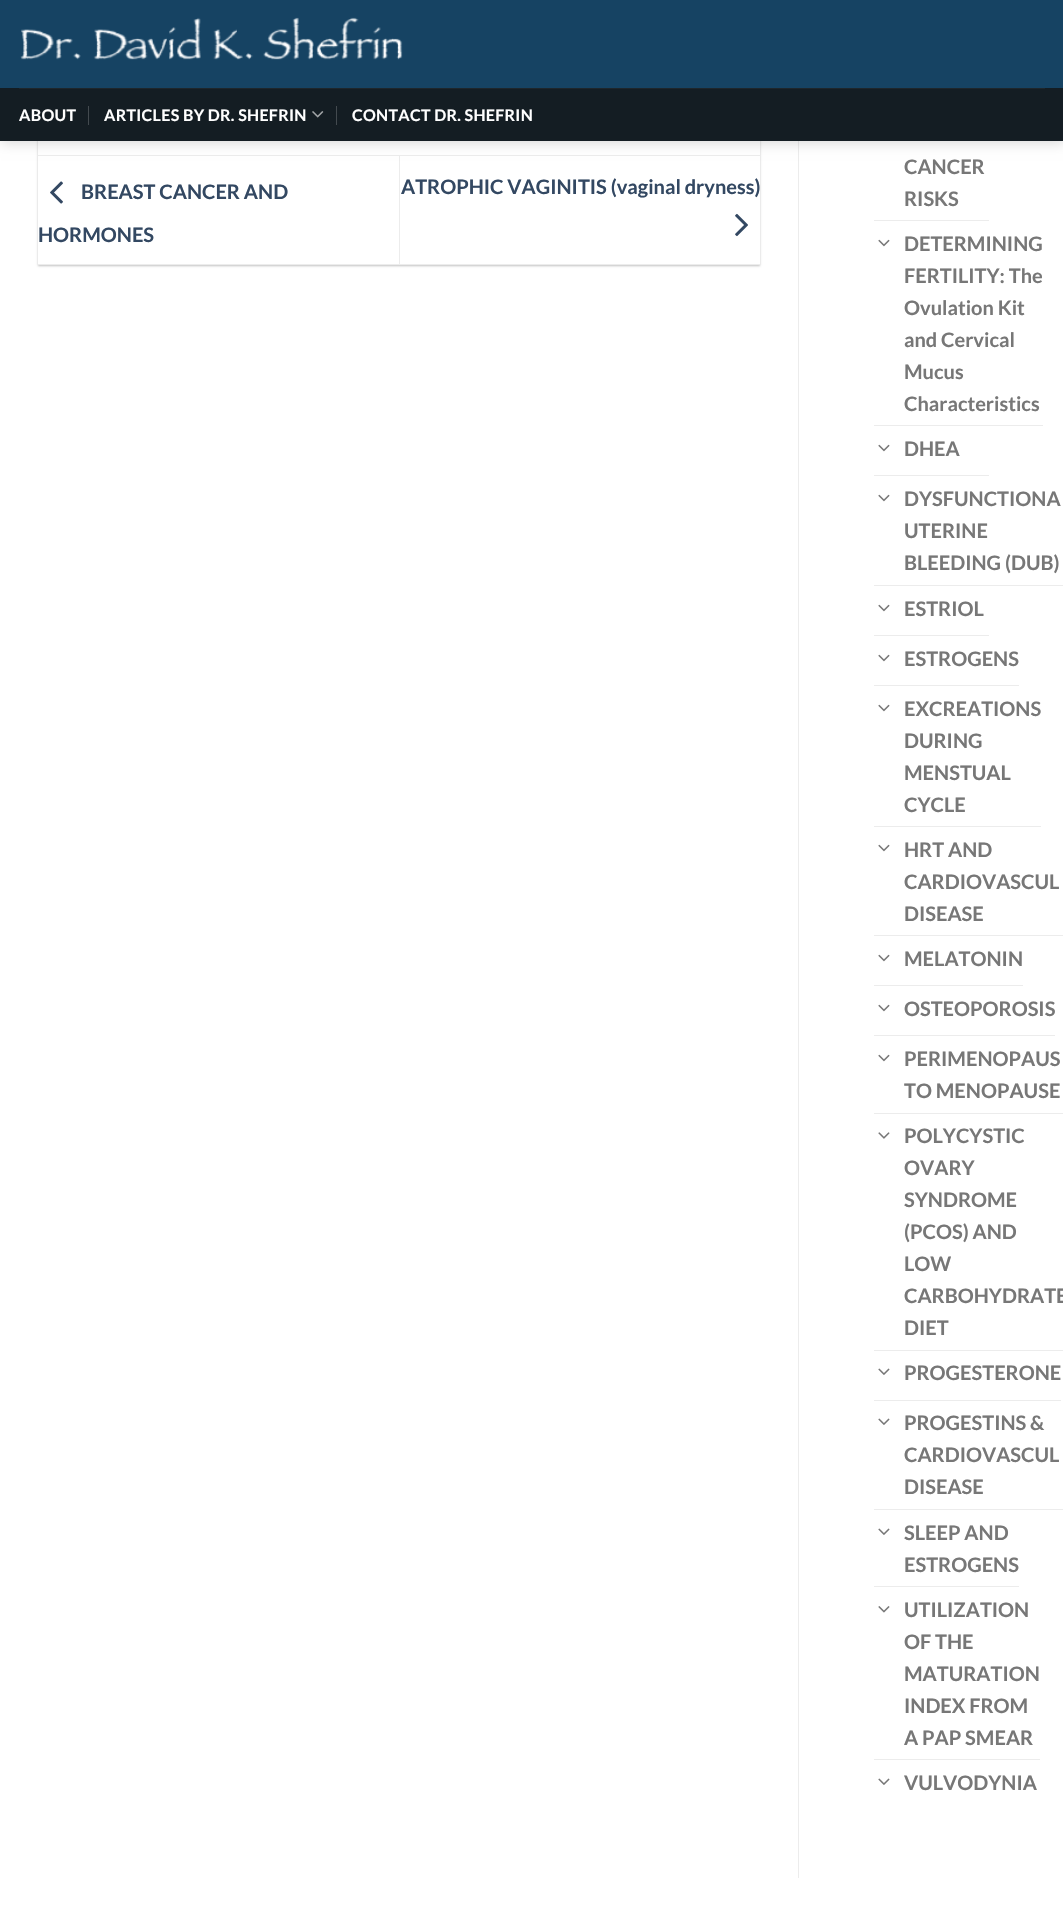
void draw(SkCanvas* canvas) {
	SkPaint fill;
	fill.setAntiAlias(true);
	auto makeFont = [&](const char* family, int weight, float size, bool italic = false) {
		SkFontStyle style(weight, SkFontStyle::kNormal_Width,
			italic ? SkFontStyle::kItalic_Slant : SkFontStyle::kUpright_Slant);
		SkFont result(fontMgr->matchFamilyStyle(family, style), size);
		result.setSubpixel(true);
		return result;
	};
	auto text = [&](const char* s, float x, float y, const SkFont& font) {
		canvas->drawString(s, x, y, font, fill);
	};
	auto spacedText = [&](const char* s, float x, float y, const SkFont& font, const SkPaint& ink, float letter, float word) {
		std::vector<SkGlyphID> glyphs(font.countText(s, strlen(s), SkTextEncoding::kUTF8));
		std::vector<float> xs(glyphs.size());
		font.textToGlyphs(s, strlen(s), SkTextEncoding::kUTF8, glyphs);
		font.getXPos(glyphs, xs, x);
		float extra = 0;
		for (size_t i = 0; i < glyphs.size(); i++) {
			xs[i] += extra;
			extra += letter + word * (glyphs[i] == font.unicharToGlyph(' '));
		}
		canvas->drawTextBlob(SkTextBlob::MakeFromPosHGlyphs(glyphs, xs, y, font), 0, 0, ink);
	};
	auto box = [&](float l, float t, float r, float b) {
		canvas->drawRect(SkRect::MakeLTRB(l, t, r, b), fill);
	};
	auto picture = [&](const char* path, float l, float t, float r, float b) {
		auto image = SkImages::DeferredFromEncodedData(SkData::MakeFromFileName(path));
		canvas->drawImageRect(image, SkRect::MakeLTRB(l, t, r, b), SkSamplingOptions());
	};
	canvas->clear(0xFFFFFFFF);
	canvas->save();
	canvas->clipPath(SkPathBuilder(SkPathFillType::kEvenOdd).moveTo(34, 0).lineTo(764, 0).lineTo(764, 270).lineTo(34, 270).close().moveTo(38, -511).lineTo(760, -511).lineTo(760, 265).lineTo(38, 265).close().detach(), true);
	fill.setColor(0x3D000000);
	fill.setMaskFilter(SkMaskFilter::MakeBlur(kNormal_SkBlurStyle, 1));
	canvas->drawRect(SkRect::MakeLTRB(38, -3, 760, 266), fill);
	fill.setMaskFilter(nullptr);
	canvas->restore();
	fill.setColor(0xFFECECEC);
	box(38, 155, 760, 156);
	box(399, 156, 400, 264);
	box(798, 141, 799, 1878);
	fill.setColor(0x26000000);
	fill.setMaskFilter(SkMaskFilter::MakeBlur(kNormal_SkBlurStyle, 6));
	canvas->drawRect(SkRect::MakeLTRB(1, 1, 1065, 143), fill);
	fill.setMaskFilter(nullptr);
	fill.setColor(0xFF164363);
	box(0, 0, 1063, 88);
	picture("image0.png", 20, 17, 403, 60);
	fill.setColor(0xFF141D23);
	box(0, 88, 1063, 141);
	fill.setColor(0xFF1E262B);
	box(19, 88, 1045, 89);
	fill.setColor(0xFF434A4F);
	box(88, 106, 89, 125);
	picture("image1.png", 312, 111, 324, 118);
	box(336, 106, 337, 125);
	fill.setColor(0xFFECECEC);
	box(38, 264, 760, 265);
	picture("image2.png", 50, 181, 63, 204);
	picture("image3.png", 735, 213, 748, 237);
	box(874, 220, 989, 221);
	box(874, 425, 1043, 426);
	picture("image4.png", 878, 239, 890, 247);
	box(874, 475, 989, 476);
	picture("image4.png", 878, 444, 890, 452);
	box(874, 585, 1063, 586);
	picture("image4.png", 878, 494, 890, 502);
	box(874, 635, 989, 636);
	picture("image4.png", 878, 604, 890, 612);
	box(874, 685, 1019, 686);
	picture("image4.png", 878, 654, 890, 662);
	box(874, 826, 1041, 827);
	picture("image4.png", 878, 704, 890, 712);
	box(874, 935, 1063, 936);
	picture("image4.png", 878, 844, 890, 852);
	box(874, 985, 1023, 986);
	picture("image4.png", 878, 954, 890, 962);
	box(874, 1035, 1055, 1036);
	picture("image4.png", 878, 1004, 890, 1012);
	box(874, 1113, 1063, 1114);
	picture("image4.png", 878, 1054, 890, 1062);
	box(874, 1350, 1063, 1351);
	picture("image5.png", 878, 1132, 890, 1139);
	box(874, 1400, 1061, 1401);
	picture("image6.png", 878, 1368, 890, 1375);
	box(874, 1509, 1063, 1510);
	picture("image6.png", 878, 1418, 890, 1425);
	box(874, 1586, 1019, 1587);
	picture("image6.png", 878, 1528, 890, 1535);
	box(874, 1759, 1040, 1760);
	picture("image7.png", 878, 1606, 890, 1613);
	picture("image6.png", 878, 1778, 890, 1785);
	auto font1 = makeFont("Lato", 700, 16);
	fill.setColor(0xFFFFFFFF);
	spacedText("ABOUT", 19, 121, font1, fill, 0.3f, 0);
	spacedText("ARTICLES BY DR. SHEFRIN", 104, 121, font1, fill, 0.3f, 0);
	spacedText("CONTACT DR. SHEFRIN", 352, 121, font1, fill, 0.3f, 0);
	auto font2 = makeFont("Lato", 700, 20);
	fill.setColor(0xFF334862);
	text("BREAST CANCER AND", 81, 199, font2);
	text("HORMONES", 38, 242, font2);
	text("ATROPHIC VAGINITIS (vaginal dryness)", 401, 194, font2);
	fill.setColor(0xFF777777);
	text("CANCER", 904, 174, font2);
	text("RISKS", 904, 206, font2);
	text("DETERMINING", 904, 251, font2);
	text("FERTILITY: The", 904, 283, font2);
	text("Ovulation Kit", 904, 315, font2);
	text("and Cervical", 904, 347, font2);
	text("Mucus", 904, 379, font2);
	text("Characteristics", 904, 411, font2);
	text("DHEA", 904, 456, font2);
	text("DYSFUNCTIONA", 904, 506, font2);
	text("UTERINE", 904, 538, font2);
	text("BLEEDING (DUB)", 904, 570, font2);
	text("ESTRIOL", 904, 616, font2);
	text("ESTROGENS", 904, 666, font2);
	text("EXCREATIONS", 904, 716, font2);
	text("DURING", 904, 748, font2);
	text("MENSTUAL", 904, 780, font2);
	text("CYCLE", 904, 812, font2);
	text("HRT AND", 904, 857, font2);
	text("CARDIOVASCUL", 904, 889, font2);
	text("DISEASE", 904, 921, font2);
	text("MELATONIN", 904, 966, font2);
	text("OSTEOPOROSIS", 904, 1016, font2);
	text("PERIMENOPAUS", 904, 1066, font2);
	text("TO MENOPAUSE", 904, 1098, font2);
	text("POLYCYSTIC", 904, 1143, font2);
	text("OVARY", 904, 1175, font2);
	text("SYNDROME", 904, 1207, font2);
	text("(PCOS) AND", 904, 1239, font2);
	text("LOW", 904, 1271, font2);
	text("CARBOHYDRATE", 904, 1303, font2);
	text("DIET", 904, 1335, font2);
	text("PROGESTERONE", 904, 1380, font2);
	text("PROGESTINS &", 904, 1430, font2);
	text("CARDIOVASCUL", 904, 1462, font2);
	text("DISEASE", 904, 1494, font2);
	text("SLEEP AND", 904, 1540, font2);
	text("ESTROGENS", 904, 1572, font2);
	text("UTILIZATION", 904, 1617, font2);
	text("OF THE", 904, 1649, font2);
	text("MATURATION", 904, 1681, font2);
	text("INDEX FROM", 904, 1713, font2);
	text("A PAP SMEAR", 904, 1745, font2);
	text("VULVODYNIA", 904, 1790, font2);
}
